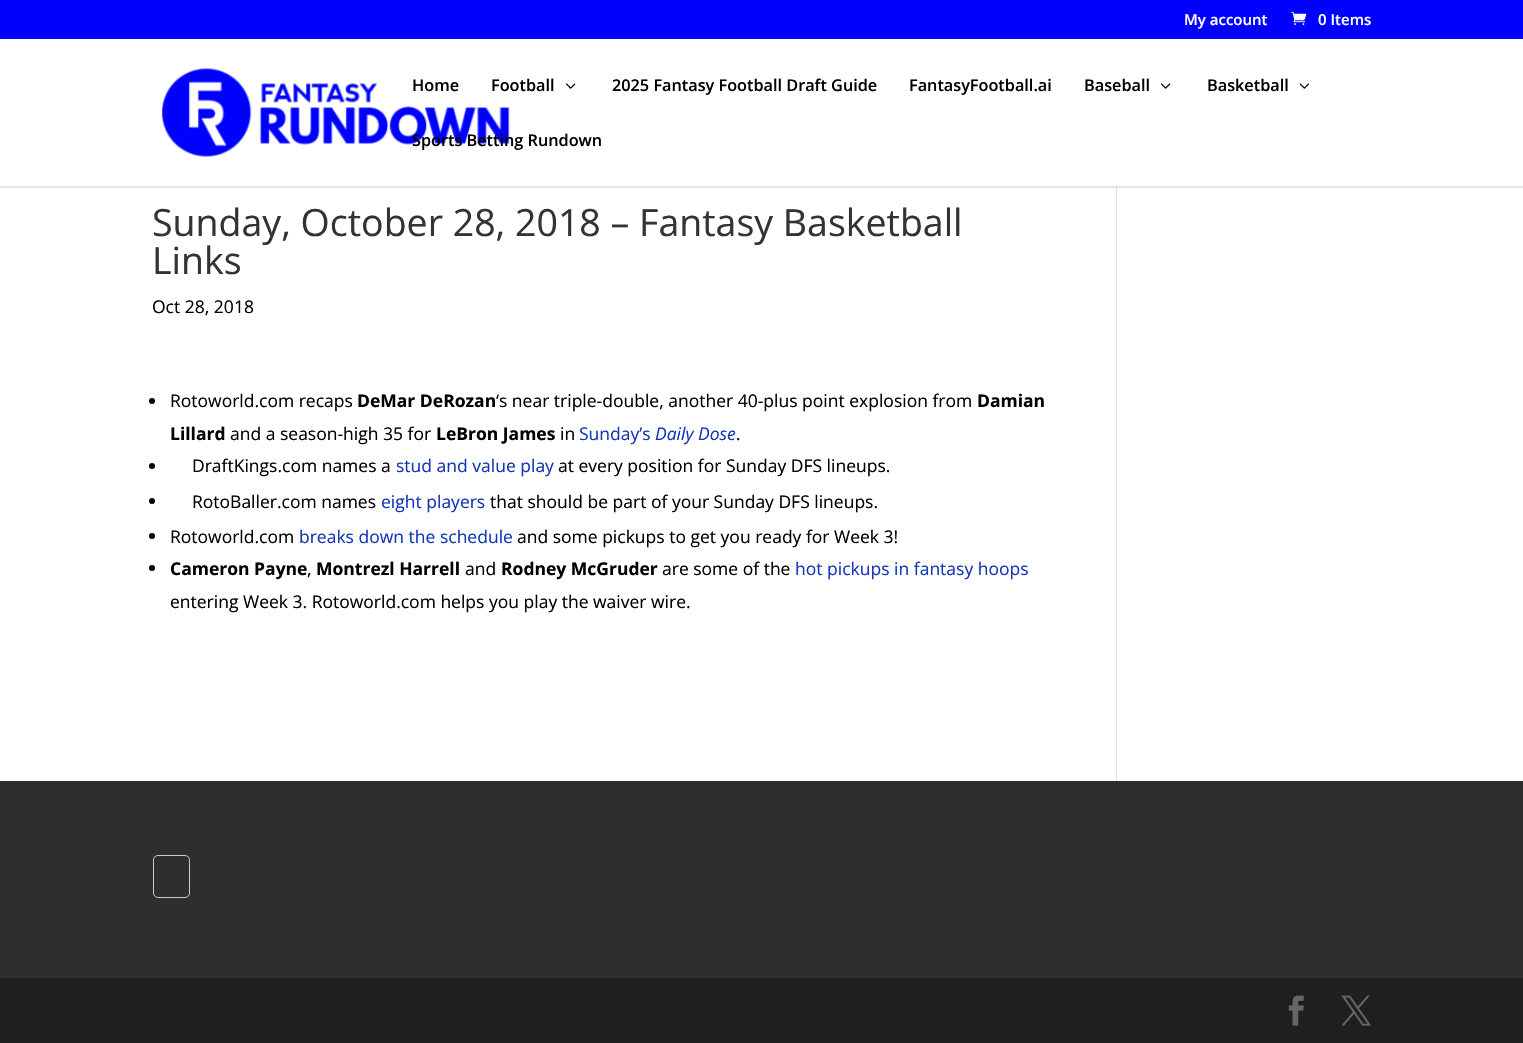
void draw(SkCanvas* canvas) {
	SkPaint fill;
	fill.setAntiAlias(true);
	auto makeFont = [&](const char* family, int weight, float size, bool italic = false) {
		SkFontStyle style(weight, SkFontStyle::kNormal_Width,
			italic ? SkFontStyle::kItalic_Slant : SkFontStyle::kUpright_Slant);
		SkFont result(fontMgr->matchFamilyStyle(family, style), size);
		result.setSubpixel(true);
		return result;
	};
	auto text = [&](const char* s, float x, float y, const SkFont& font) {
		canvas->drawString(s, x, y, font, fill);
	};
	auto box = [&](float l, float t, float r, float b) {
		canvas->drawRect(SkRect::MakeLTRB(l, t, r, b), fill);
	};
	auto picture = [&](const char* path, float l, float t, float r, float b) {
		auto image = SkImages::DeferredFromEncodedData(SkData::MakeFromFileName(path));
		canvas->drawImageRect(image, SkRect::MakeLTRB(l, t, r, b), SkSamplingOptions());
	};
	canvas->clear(0xFFFFFFFF);
	fill.setColor(0xFF0000FF);
	box(0, 0, 1523, 39);
	picture("image0.png", 1291, 11, 1307, 25);
	fill.setColor(0xFFE2E2E2);
	box(1116, 186, 1117, 781);
	fill.setColor(0x1A000000);
	canvas->drawPath(SkPathBuilder().moveTo(0, 186).lineTo(0, 188).lineTo(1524, 188).lineTo(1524, 40).lineTo(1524, 186).close().detach(), fill);
	picture("image1.png", 161, 68, 510, 157);
	picture("image2.png", 566, 83, 576, 89);
	picture("image2.png", 1161, 83, 1171, 89);
	picture("image3.png", 1299, 83, 1309, 89);
	fill.setColor(0xFF000000);
	canvas->drawCircle(152, 401, 3, fill);
	canvas->drawCircle(152, 466, 3, fill);
	canvas->drawCircle(152, 501, 3, fill);
	canvas->drawCircle(152, 536, 3, fill);
	canvas->drawCircle(152, 568, 3, fill);
	fill.setColor(0xFF2E2E2E);
	box(0, 781, 1523, 978);
	fill.setStyle(SkPaint::kStroke_Style);
	fill.setStrokeWidth(1);
	fill.setColor(0xFFCCCCCC);
	canvas->drawRoundRect(SkRect::MakeLTRB(153.5f, 855.5f, 189.5f, 897.5f), 4.5f, 4.5f, fill);
	fill.setStyle(SkPaint::kFill_Style);
	fill.setColor(0xFF1F1F1F);
	box(0, 978, 1523, 1043);
	picture("image4.png", 1288, 995, 1304, 1026);
	picture("image5.png", 1341, 995, 1371, 1026);
	auto font1 = makeFont("Open Sans", 600, 15);
	fill.setColor(0xFFFFFFFF);
	text("My account", 1184, 25, font1);
	text("0 Items", 1318, 25, font1);
	auto font2 = makeFont("Open Sans", 600, 16.25f);
	fill.setColor(0xFF000000);
	text("Home", 412, 91, font2);
	text("Football", 491, 91, font2);
	text("2025 Fantasy Football Draft Guide", 612, 91, font2);
	text("FantasyFootball.ai", 909, 91, font2);
	text("Baseball", 1084, 91, font2);
	text("Basketball", 1207, 91, font2);
	text("Sports Betting Rundown", 412, 146, font2);
	auto font3 = makeFont("Open Sans", 400, 37.5f);
	fill.setColor(0xFF333333);
	text("Sunday, October 28, 2018 – Fantasy Basketball", 152, 236, font3);
	text("Links", 152, 274, font3);
	auto font4 = makeFont("Open Sans", 400, 17.5f);
	fill.setColor(0xFF000000);
	text("Oct 28, 2018", 152, 313, font4);
	text("Rotoworld.com recaps", 170, 407, font4);
	auto font5 = makeFont("Open Sans", 700, 17.5f);
	text("DeMar DeRozan", 357, 407, font5);
	text("‘s near triple-double, another 40-plus point explosion from", 496, 407, font4);
	text("Damian", 977, 407, font5);
	text("Lillard", 170, 440, font5);
	text("and a season-high 35 for", 230, 440, font4);
	text("LeBron James", 436, 440, font5);
	text("in", 560, 440, font4);
	fill.setColor(0xFF1236B7);
	text("Sunday’s", 579, 440, font4);
	auto font6 = makeFont("Open Sans", 400, 17.5f, true);
	text("Daily Dose", 655, 440, font6);
	fill.setColor(0xFF000000);
	text(".", 736, 440, font4);
	text("DraftKings.com names a", 192, 472, font4);
	fill.setColor(0xFF1236B7);
	text("stud and value play", 396, 472, font4);
	fill.setColor(0xFF000000);
	text("at every position for Sunday DFS lineups.", 558, 472, font4);
	text("RotoBaller.com names", 192, 508, font4);
	fill.setColor(0xFF1236B7);
	text("eight players", 381, 508, font4);
	fill.setColor(0xFF000000);
	text("that should be part of your Sunday DFS lineups.", 490, 508, font4);
	text("Rotoworld.com", 170, 543, font4);
	fill.setColor(0xFF1236B7);
	text("breaks down the schedule", 299, 543, font4);
	fill.setColor(0xFF000000);
	text("and some pickups to get you ready for Week 3!", 517, 543, font4);
	text("Cameron Payne", 170, 575, font5);
	text("Montrezl Harrell", 316, 575, font5);
	text("and", 465, 575, font4);
	text("Rodney McGruder", 501, 575, font5);
	text("are some of the", 662, 575, font4);
	fill.setColor(0xFF1236B7);
	text("hot pickups in fantasy hoops", 795, 575, font4);
	fill.setColor(0xFF000000);
	text(",", 307, 575, font4);
	text("entering Week 3. Rotoworld.com helps you play the waiver wire.", 170, 608, font4);
}
